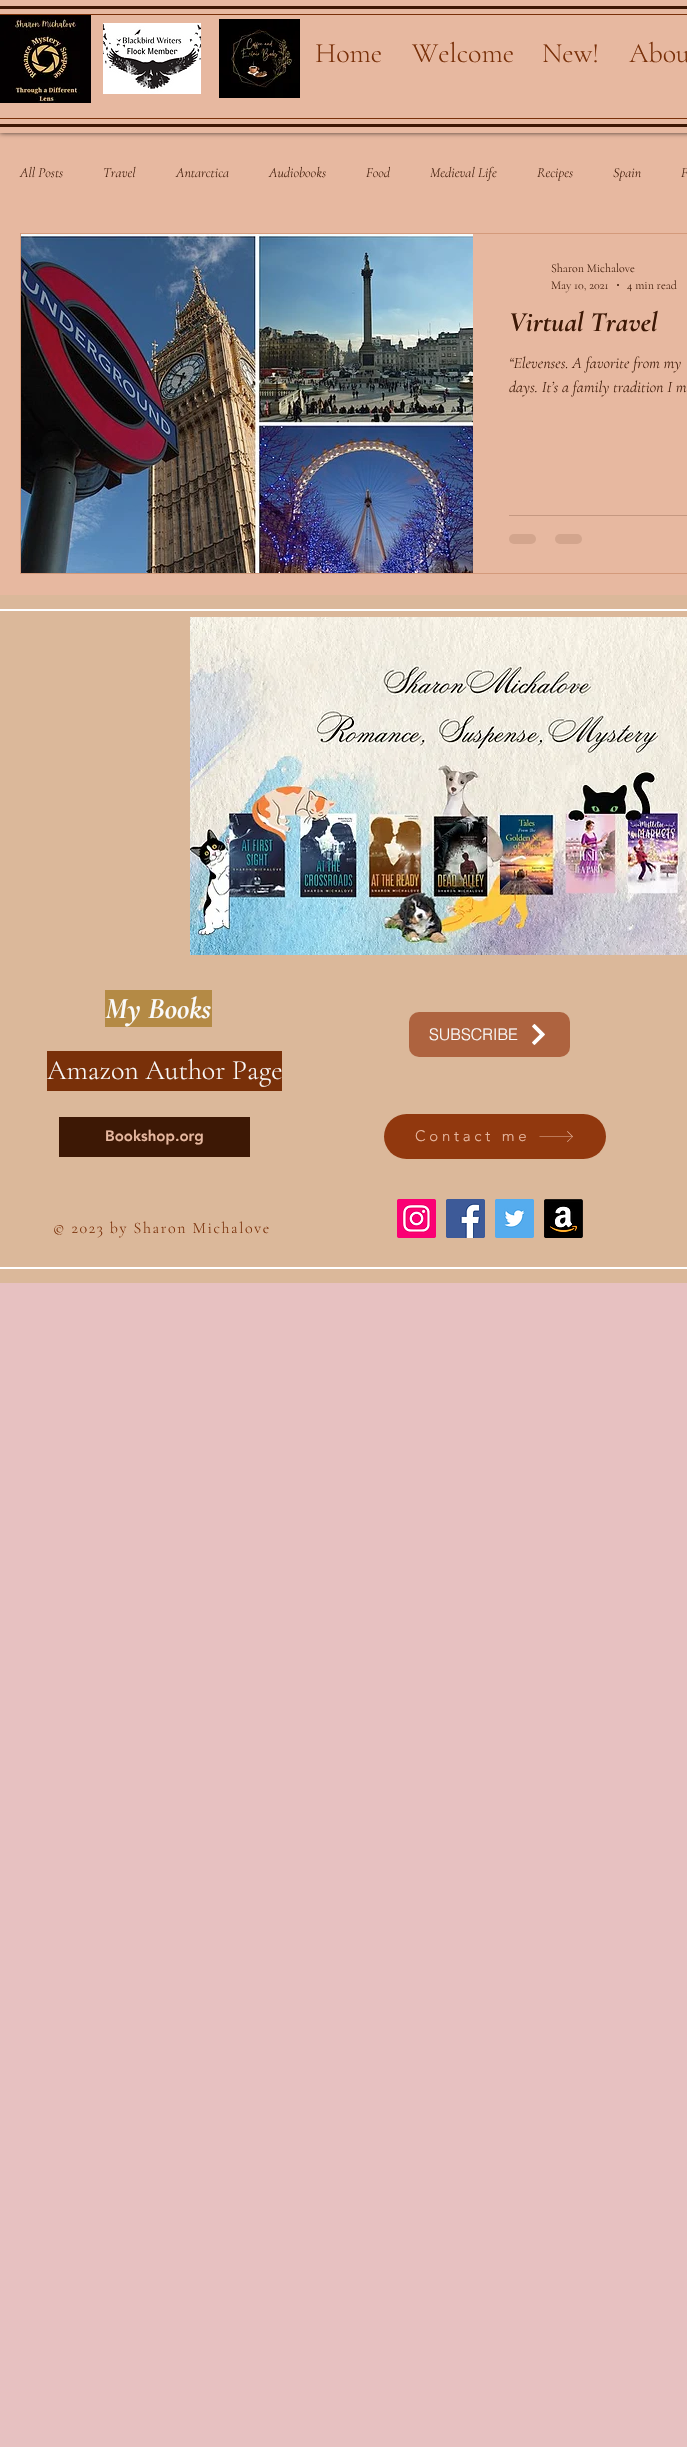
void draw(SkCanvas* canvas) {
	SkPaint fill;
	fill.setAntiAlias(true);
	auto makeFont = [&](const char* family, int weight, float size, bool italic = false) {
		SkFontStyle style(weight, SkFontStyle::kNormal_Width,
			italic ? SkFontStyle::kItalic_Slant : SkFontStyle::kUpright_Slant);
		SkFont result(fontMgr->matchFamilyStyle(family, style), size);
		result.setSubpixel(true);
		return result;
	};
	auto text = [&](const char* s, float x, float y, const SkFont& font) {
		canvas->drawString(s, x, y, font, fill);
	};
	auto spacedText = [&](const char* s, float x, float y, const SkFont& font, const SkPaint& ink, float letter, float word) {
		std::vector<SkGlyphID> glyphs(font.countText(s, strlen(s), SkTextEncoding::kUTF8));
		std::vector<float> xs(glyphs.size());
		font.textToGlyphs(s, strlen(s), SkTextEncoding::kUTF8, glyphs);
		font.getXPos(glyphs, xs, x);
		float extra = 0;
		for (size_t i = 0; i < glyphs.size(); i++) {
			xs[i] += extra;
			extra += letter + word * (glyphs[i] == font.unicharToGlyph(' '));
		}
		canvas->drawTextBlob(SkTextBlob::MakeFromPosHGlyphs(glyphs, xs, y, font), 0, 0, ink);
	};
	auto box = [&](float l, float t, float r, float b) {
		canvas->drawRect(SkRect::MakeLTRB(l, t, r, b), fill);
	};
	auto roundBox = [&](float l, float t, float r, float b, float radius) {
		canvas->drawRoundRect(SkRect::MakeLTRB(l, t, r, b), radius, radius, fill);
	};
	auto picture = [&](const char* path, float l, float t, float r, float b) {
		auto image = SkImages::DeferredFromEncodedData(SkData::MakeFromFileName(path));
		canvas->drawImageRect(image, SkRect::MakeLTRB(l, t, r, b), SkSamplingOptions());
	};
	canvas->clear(0xFFE7C1C1);
	fill.setColor(0xFFE7B8A0);
	box(0, 133, 687, 595);
	fill.setColor(0xB3000000);
	fill.setMaskFilter(SkMaskFilter::MakeBlur(kNormal_SkBlurStyle, 2.5f));
	canvas->drawRect(SkRect::MakeLTRB(0, 0, 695, 133), fill);
	fill.setMaskFilter(nullptr);
	fill.setColor(0xFFE7B8A0);
	box(0, 0, 687, 133);
	fill.setColor(0xFF3D1805);
	box(0, 6, 687, 9);
	box(0, 124, 687, 127);
	fill.setColor(0xFF793009);
	box(0, 14, 687, 15);
	box(0, 118, 687, 119);
	picture("image0.png", 0, 15, 91, 103);
	picture("image1.png", 103, 23, 201, 94);
	picture("image2.png", 219, 19, 300, 98);
	fill.setStyle(SkPaint::kStroke_Style);
	fill.setStrokeWidth(1);
	fill.setColor(0xFFD49A7B);
	canvas->drawRect(SkRect::MakeLTRB(20.5f, 233.5f, 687.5f, 573.5f), fill);
	picture("image3.png", 21, 234, 473, 573);
	fill.setStyle(SkPaint::kFill_Style);
	fill.setColor(0xFF3D1805);
	canvas->drawCircle(618, 285, 1, fill);
	fill.setColor(0xFFC59881);
	box(509, 515, 687, 516);
	fill.setColor(0xFFD3A58D);
	roundBox(509, 534, 536, 544, 5);
	roundBox(555, 534, 582, 544, 5);
	fill.setColor(0xFFDBB89A);
	box(0, 595, 687, 1283);
	fill.setColor(0xFFFFFFFF);
	box(0, 609, 687, 611);
	box(0, 1267, 687, 1269);
	picture("image4.png", 190, 617, 687, 955);
	fill.setColor(0xFFB48A45);
	box(105, 990, 212, 1027);
	fill.setColor(0xFFAE633F);
	roundBox(409, 1012, 570, 1057, 10);
	picture("image5.png", 532, 1024, 545, 1045);
	fill.setColor(0xFF793009);
	box(47, 1051, 282, 1091);
	fill.setColor(0xFF3D1805);
	box(59, 1117, 250, 1157);
	fill.setColor(0xFF91380E);
	roundBox(384, 1114, 606, 1159, 22.5f);
	fill.setColor(0xFFE7B8A0);
	canvas->drawPath(SkPathBuilder().moveTo(567.5f, 1131).lineTo(567, 1131.5f).lineTo(572, 1136.5f).lineTo(539.5f, 1136.5f).lineTo(539.5f, 1137).lineTo(572, 1137).lineTo(567, 1141.5f).lineTo(567.5f, 1142).lineTo(573, 1136.5f).close().detach(), fill);
	picture("image6.png", 397, 1199, 436, 1238);
	picture("image7.png", 446, 1199, 485, 1238);
	picture("image8.png", 495, 1199, 534, 1238);
	picture("image9.png", 544, 1199, 583, 1238);
	auto font1 = makeFont("Cormorant Garamond", 300, 28);
	fill.setColor(0xFF793009);
	text("Home", 315, 62, font1);
	text("Welcome", 412, 62, font1);
	text("New!", 542, 62, font1);
	text("Abou", 629, 62, font1);
	auto font2 = makeFont("Cormorant Garamond", 300, 14, true);
	fill.setColor(0xFF3D1805);
	text("All Posts", 20, 177, font2);
	text("Travel", 103, 177, font2);
	text("Antarctica", 176, 177, font2);
	text("Audiobooks", 269, 177, font2);
	text("Food", 366, 177, font2);
	text("Medieval Life", 430, 177, font2);
	text("Recipes", 537, 177, font2);
	text("Spain", 613, 177, font2);
	text("F", 681, 177, font2);
	auto font3 = makeFont("Cormorant Garamond", 300, 12);
	text("Sharon Michalove", 551, 272, font3);
	text("May 10, 2021", 551, 289, font3);
	text("4 min read", 627, 289, font3);
	auto font4 = makeFont("Cormorant Garamond", 700, 28, true);
	text("Virtual Travel", 509, 331, font4);
	auto font5 = makeFont("Cormorant Garamond", 300, 16, true);
	text("“Elevenses. A favorite from my", 509, 368, font5);
	text("days. It’s a family tradition I m", 509, 392, font5);
	auto font6 = makeFont("Cormorant Garamond", 700, 30, true);
	fill.setColor(0xFFFAFAFA);
	text("My Books", 105, 1018, font6);
	auto font7 = makeFont("helvetica", 300, 16);
	text("SUBSCRIBE", 429, 1040, font7);
	text("Amazon Author Page", 47, 1079, font1);
	auto font8 = makeFont("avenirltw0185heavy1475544", 900, 15);
	fill.setColor(0xFFE7B8A0);
	text("Bookshop.org", 105, 1141, font8);
	auto font9 = makeFont("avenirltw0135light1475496", 300, 15);
	spacedText("Contact me", 415, 1141, font9, fill, 3.75f, 0);
	auto font10 = makeFont("Cormorant Garamond", 300, 16);
	fill.setColor(0xFF793009);
	spacedText("© 2023 by Sharon Michalove", 53, 1233, font10, fill, 1.6f, 0);
}
